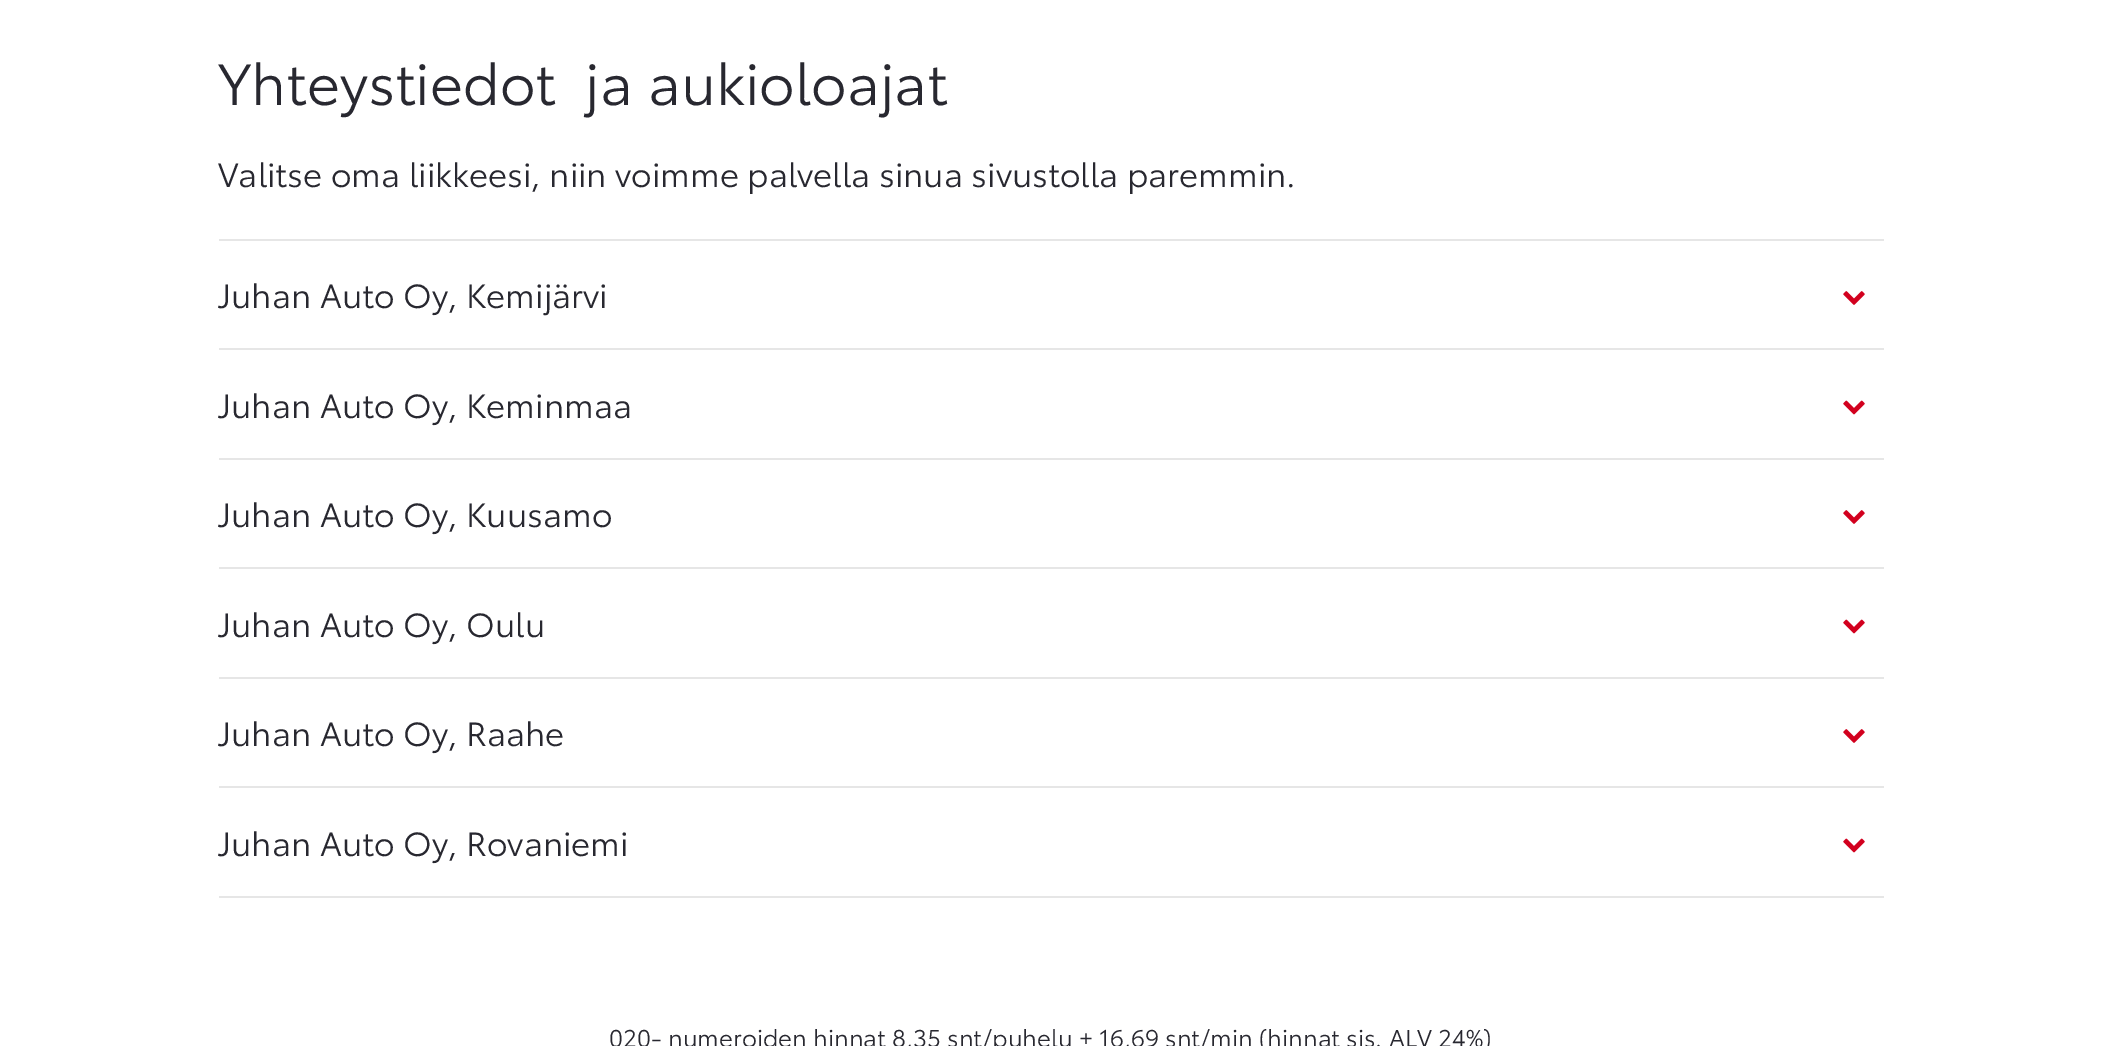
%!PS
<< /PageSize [2101 1046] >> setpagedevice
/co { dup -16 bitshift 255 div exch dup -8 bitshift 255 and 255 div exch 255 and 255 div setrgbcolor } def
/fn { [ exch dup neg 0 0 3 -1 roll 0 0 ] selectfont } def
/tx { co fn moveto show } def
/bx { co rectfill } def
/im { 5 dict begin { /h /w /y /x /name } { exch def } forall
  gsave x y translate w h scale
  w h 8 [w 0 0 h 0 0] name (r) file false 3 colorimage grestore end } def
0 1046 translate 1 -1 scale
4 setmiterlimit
0 0 2101 1046 16#FFFFFF bx
219 239 1665 2 16#E6E6E6 bx
(media/1.raw) 1843 291 22 14 im
219 348 1665 2 16#E6E6E6 bx
(media/2.raw) 1843 400 22 15 im
219 458 1665 2 16#E6E6E6 bx
(media/1.raw) 1843 510 22 14 im
219 567 1665 2 16#E6E6E6 bx
(media/2.raw) 1843 619 22 15 im
219 677 1665 2 16#E6E6E6 bx
(media/1.raw) 1843 729 22 14 im
219 786 1665 2 16#E6E6E6 bx
(media/2.raw) 1843 838 22 15 im
219 896 1665 2 16#E6E6E6 bx
(Yhteystiedot  ja aukioloajat) 218 105 /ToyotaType-Regular 57 16#282830 tx
(Valitse oma liikkeesi, niin voimme palvella sinua sivustolla paremmin.) 218 187 /ToyotaType-Regular 33 16#282830 tx
(Juhan Auto Oy, Kemijärvi) 218 308 /ToyotaType-Regular 33 16#282830 tx
(Juhan Auto Oy, Keminmaa) 218 418 /ToyotaType-Regular 33 16#282830 tx
(Juhan Auto Oy, Kuusamo) 218 527 /ToyotaType-Regular 33 16#282830 tx
(Juhan Auto Oy, Oulu) 218 637 /ToyotaType-Regular 33 16#282830 tx
(Juhan Auto Oy, Raahe) 218 746 /ToyotaType-Regular 33 16#282830 tx
(Juhan Auto Oy, Rovaniemi) 218 856 /ToyotaType-Regular 33 16#282830 tx
(020- numeroiden hinnat 8,35 snt/puhelu + 16,69 snt/min \(hinnat sis. ALV 24%\)) 609 1047 /ToyotaType-Regular 24 16#282830 tx
showpage
